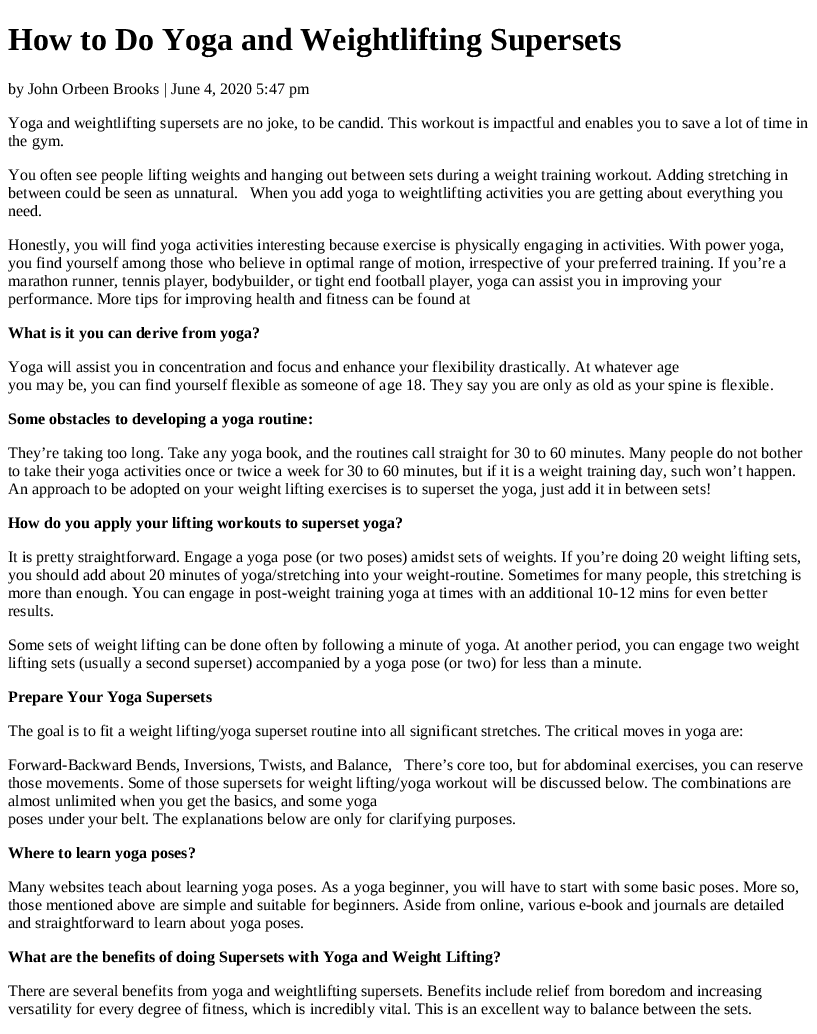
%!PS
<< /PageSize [817 1034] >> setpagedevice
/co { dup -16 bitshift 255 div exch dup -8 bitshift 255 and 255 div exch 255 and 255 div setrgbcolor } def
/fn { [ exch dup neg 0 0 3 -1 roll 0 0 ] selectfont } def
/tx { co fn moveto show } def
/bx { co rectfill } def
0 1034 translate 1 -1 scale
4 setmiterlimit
0 0 817 1034 16#FFFFFF bx
(How to Do Yoga and Weightlifting Supersets) 8 50 /LiberationSerif-Bold 32 16#000000 tx
(by John Orbeen Brooks | June 4, 2020 5:47 pm) 8 94 /LiberationSerif-Regular 16 16#000000 tx
(Yoga and weightlifting supersets are no joke, to be candid. This workout is impactful and enables you to save a lot of time in) 8 128 /LiberationSerif-Regular 16 16#000000 tx
(the gym.) 8 146 /LiberationSerif-Regular 16 16#000000 tx
(You often see people lifting weights and hanging out between sets during a weight training workout. Adding stretching in) 8 180 /LiberationSerif-Regular 16 16#000000 tx
(between could be seen as unnatural.   When you add yoga to weightlifting activities you are getting about everything you) 8 198 /LiberationSerif-Regular 16 16#000000 tx
(need.) 8 216 /LiberationSerif-Regular 16 16#000000 tx
(Honestly, you will find yoga activities interesting because exercise is physically engaging in activities. With power yoga,) 8 250 /LiberationSerif-Regular 16 16#000000 tx
(you find yourself among those who believe in optimal range of motion, irrespective of your preferred training. If you’re a) 8 268 /LiberationSerif-Regular 16 16#000000 tx
(marathon runner, tennis player, bodybuilder, or tight end football player, yoga can assist you in improving your) 8 286 /LiberationSerif-Regular 16 16#000000 tx
(performance. More tips for improving health and fitness can be found at) 8 304 /LiberationSerif-Regular 16 16#000000 tx
(What is it you can derive from yoga?) 8 338 /LiberationSerif-Bold 16 16#000000 tx
(Yoga will assist you in concentration and focus and enhance your flexibility drastically. At whatever age) 8 372 /LiberationSerif-Regular 16 16#000000 tx
(you may be, you can find yourself flexible as someone of age 18. They say you are only as old as your spine is flexible.) 8 390 /LiberationSerif-Regular 16 16#000000 tx
(Some obstacles to developing a yoga routine:) 8 424 /LiberationSerif-Bold 16 16#000000 tx
(They’re taking too long. Take any yoga book, and the routines call straight for 30 to 60 minutes. Many people do not bother) 8 458 /LiberationSerif-Regular 16 16#000000 tx
(to take their yoga activities once or twice a week for 30 to 60 minutes, but if it is a weight training day, such won’t happen.) 8 476 /LiberationSerif-Regular 16 16#000000 tx
(An approach to be adopted on your weight lifting exercises is to superset the yoga, just add it in between sets!) 8 494 /LiberationSerif-Regular 16 16#000000 tx
(How do you apply your lifting workouts to superset yoga?) 8 528 /LiberationSerif-Bold 16 16#000000 tx
(It is pretty straightforward. Engage a yoga pose \(or two poses\) amidst sets of weights. If you’re doing 20 weight lifting sets,) 8 562 /LiberationSerif-Regular 16 16#000000 tx
(you should add about 20 minutes of yoga/stretching into your weight-routine. Sometimes for many people, this stretching is) 8 580 /LiberationSerif-Regular 16 16#000000 tx
(more than enough. You can engage in post-weight training yoga at times with an additional 10-12 mins for even better) 8 598 /LiberationSerif-Regular 16 16#000000 tx
(results.) 8 616 /LiberationSerif-Regular 16 16#000000 tx
(Some sets of weight lifting can be done often by following a minute of yoga. At another period, you can engage two weight) 8 650 /LiberationSerif-Regular 16 16#000000 tx
(lifting sets \(usually a second superset\) accompanied by a yoga pose \(or two\) for less than a minute.) 8 668 /LiberationSerif-Regular 16 16#000000 tx
(Prepare Your Yoga Supersets) 8 702 /LiberationSerif-Bold 16 16#000000 tx
(The goal is to fit a weight lifting/yoga superset routine into all significant stretches. The critical moves in yoga are:) 8 736 /LiberationSerif-Regular 16 16#000000 tx
(Forward-Backward Bends, Inversions, Twists, and Balance,   There’s core too, but for abdominal exercises, you can reserve) 8 770 /LiberationSerif-Regular 16 16#000000 tx
(those movements. Some of those supersets for weight lifting/yoga workout will be discussed below. The combinations are) 8 788 /LiberationSerif-Regular 16 16#000000 tx
(almost unlimited when you get the basics, and some yoga) 8 806 /LiberationSerif-Regular 16 16#000000 tx
(poses under your belt. The explanations below are only for clarifying purposes.) 8 824 /LiberationSerif-Regular 16 16#000000 tx
(Where to learn yoga poses?) 8 858 /LiberationSerif-Bold 16 16#000000 tx
(Many websites teach about learning yoga poses. As a yoga beginner, you will have to start with some basic poses. More so,) 8 892 /LiberationSerif-Regular 16 16#000000 tx
(those mentioned above are simple and suitable for beginners. Aside from online, various e-book and journals are detailed) 8 910 /LiberationSerif-Regular 16 16#000000 tx
(and straightforward to learn about yoga poses.) 8 928 /LiberationSerif-Regular 16 16#000000 tx
(What are the benefits of doing Supersets with Yoga and Weight Lifting?) 8 962 /LiberationSerif-Bold 16 16#000000 tx
(There are several benefits from yoga and weightlifting supersets. Benefits include relief from boredom and increasing) 8 996 /LiberationSerif-Regular 16 16#000000 tx
(versatility for every degree of fitness, which is incredibly vital. This is an excellent way to balance between the sets.) 8 1014 /LiberationSerif-Regular 16 16#000000 tx
showpage
